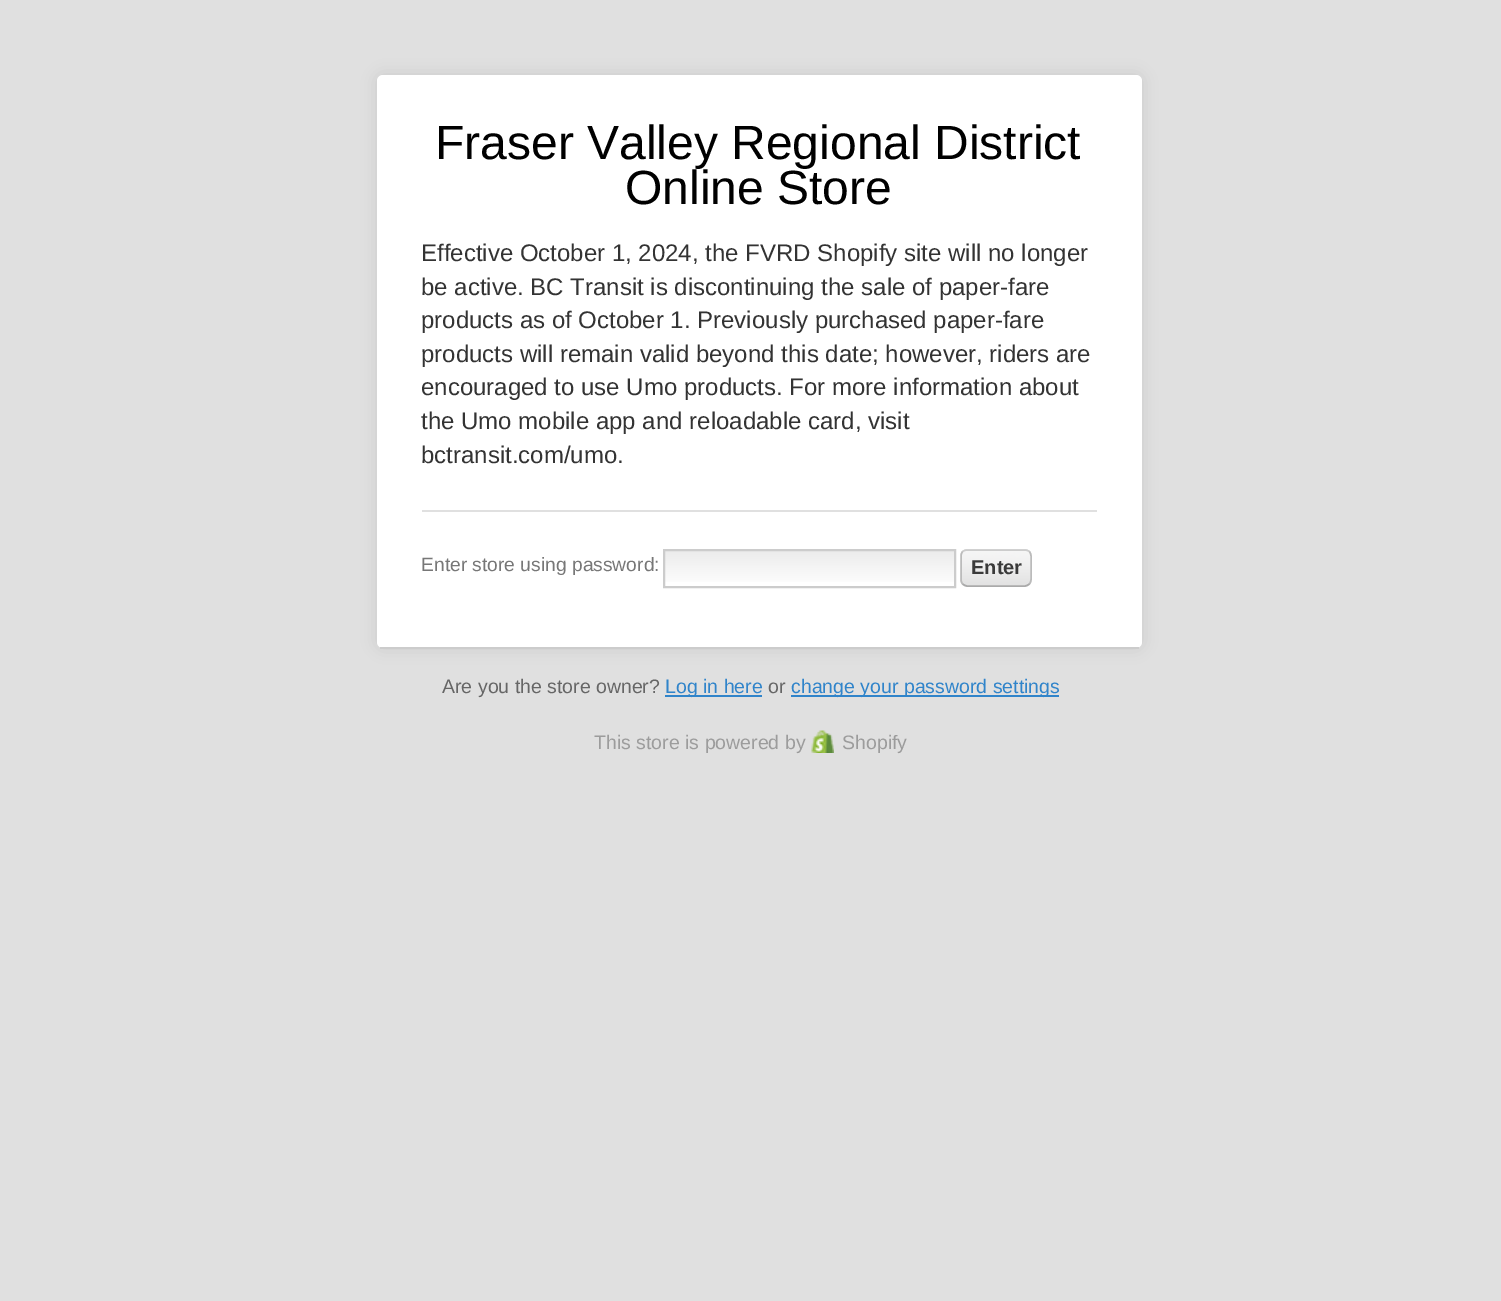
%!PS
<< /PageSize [1501 1301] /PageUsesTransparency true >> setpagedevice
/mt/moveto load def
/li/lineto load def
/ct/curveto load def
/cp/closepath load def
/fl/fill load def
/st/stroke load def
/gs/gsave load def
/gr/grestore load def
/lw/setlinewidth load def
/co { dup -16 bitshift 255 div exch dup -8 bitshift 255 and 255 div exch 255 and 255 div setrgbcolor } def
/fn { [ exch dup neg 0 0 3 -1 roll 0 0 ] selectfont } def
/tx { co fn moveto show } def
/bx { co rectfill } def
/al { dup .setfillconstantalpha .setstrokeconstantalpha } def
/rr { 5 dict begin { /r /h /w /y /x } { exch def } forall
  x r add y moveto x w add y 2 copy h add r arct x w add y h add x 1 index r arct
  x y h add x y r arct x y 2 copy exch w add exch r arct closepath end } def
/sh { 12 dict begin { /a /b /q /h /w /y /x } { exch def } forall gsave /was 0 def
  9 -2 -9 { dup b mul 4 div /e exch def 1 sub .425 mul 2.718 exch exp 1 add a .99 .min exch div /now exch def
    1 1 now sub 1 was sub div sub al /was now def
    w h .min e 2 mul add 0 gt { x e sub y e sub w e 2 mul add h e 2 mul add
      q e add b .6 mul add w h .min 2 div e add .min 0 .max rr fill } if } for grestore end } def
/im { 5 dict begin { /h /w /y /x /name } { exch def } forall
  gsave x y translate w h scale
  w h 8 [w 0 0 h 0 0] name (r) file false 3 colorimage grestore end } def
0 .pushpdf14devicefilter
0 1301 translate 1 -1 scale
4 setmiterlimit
0 0 1501 1301 16#E0E0E0 bx
16#000000 co
377 75 765 573 6 7.5 .1 sh
16#FFFFFF co
377 75 765 573 6 rr fl
380 647 759 2 16#CCCCCC bx
422 510 675 2 16#E0E0E0 bx
gs 665 551 mt 954 551 li 954 582 li 665 582 li cp clip newpath
<< /ShadingType 2 /ColorSpace /DeviceRGB /Coords [665 551 665 587] /Extend [true true] /Function << /FunctionType 2 /Domain [0 1] /C0 [.925 .925 .925] /C1 [1 1 1] /N 1 >> >> shfill gr
16#CCCCCC co
2 lw
664 550 291 37 rectstroke
16#DDDDDD co
960 549 72 38 8 rr fl
(media/1.raw) 960 550 72 36 im
16#CCCCCC co
1.5 lw
962.5 551.5 mt 964 550.5 965.5 550 967.5 550 ct 1024.5 550 li 1026.5 550 1028 550.5 1029.5 551.5 ct st
16#BBBBBB co
1029.5 551.5 mt 1030.5 553 1031 554.5 1031 556.5 ct 1031 579 li 1031 581 1030.5 582.5 1029.5 584 ct st
16#AAAAAA co
1029.5 584 mt 1028 585 1026.5 586 1024.5 586 ct 967.5 586 li 965.5 586 964 585 962.5 584 ct st
16#BBBBBB co
962.5 584 mt 961.5 582.5 961 581 961 579 ct 961 556.5 li 961 554.5 961.5 553 962.5 551.5 ct st
665 695 97 2 16#3084CA bx
791 695 268 2 16#3084CA bx
(media/2.raw) 811 730 23 23 im
(Fraser Valley Regional District) 435 159 /LiberationSans-Regular 48 16#000000 tx
(Online Store) 625 204 /LiberationSans-Regular 48 16#000000 tx
(Effective October 1, 2024, the FVRD Shopify site will no longer) 421 261 /LiberationSans-Regular 24 16#333333 tx
(be active. BC Transit is discontinuing the sale of paper-fare) 421 295 /LiberationSans-Regular 24 16#333333 tx
(products as of October 1. Previously purchased paper-fare) 421 328 /LiberationSans-Regular 24 16#333333 tx
(products will remain valid beyond this date; however, riders are) 421 362 /LiberationSans-Regular 24 16#333333 tx
(encouraged to use Umo products. For more information about) 421 395 /LiberationSans-Regular 24 16#333333 tx
(the Umo mobile app and reloadable card, visit) 421 429 /LiberationSans-Regular 24 16#333333 tx
(bctransit.com/umo.) 421 463 /LiberationSans-Regular 24 16#333333 tx
(Enter store using password:) 421 571 /LiberationSans-Regular 19.25 16#777777 tx
(Enter) 971 574 /LiberationSans-Bold 20 16#3A3A3A tx
(Are you the store owner?) 442 693 /LiberationSans-Regular 19.5 16#666666 tx
(Log in here) 665 693 /LiberationSans-Regular 19.5 16#3084CA tx
(or) 768 693 /LiberationSans-Regular 19.5 16#666666 tx
(change your password settings) 791 693 /LiberationSans-Regular 19.5 16#3084CA tx
(This store is powered by) 594 749 /LiberationSans-Regular 19.5 16#9C9C9C tx
(Shopify) 842 749 /LiberationSans-Regular 19.5 16#9C9C9C tx
.poppdf14devicefilter showpage
